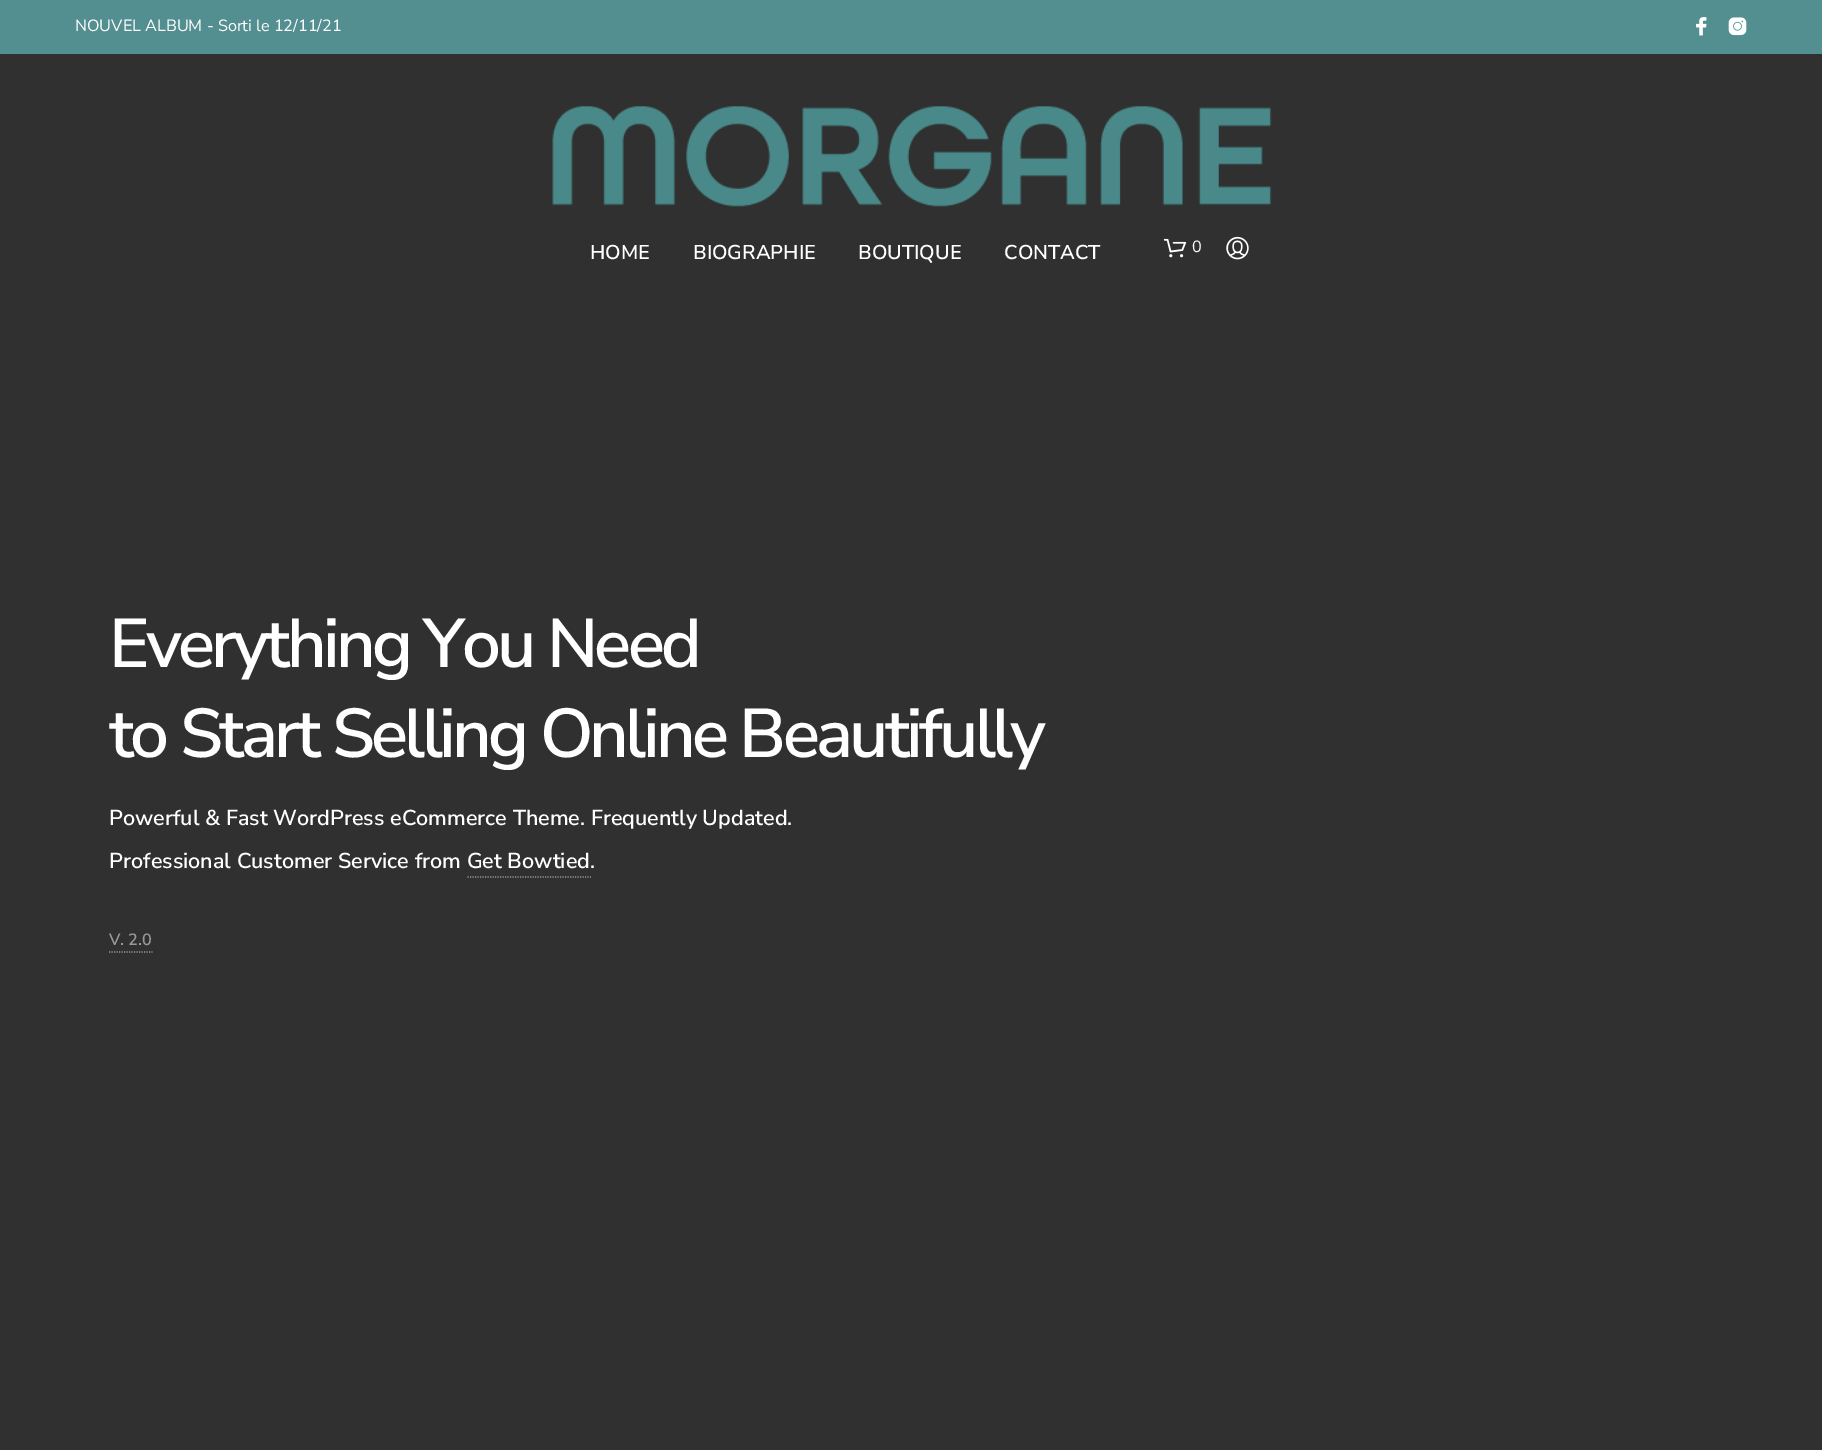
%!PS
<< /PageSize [1822 1450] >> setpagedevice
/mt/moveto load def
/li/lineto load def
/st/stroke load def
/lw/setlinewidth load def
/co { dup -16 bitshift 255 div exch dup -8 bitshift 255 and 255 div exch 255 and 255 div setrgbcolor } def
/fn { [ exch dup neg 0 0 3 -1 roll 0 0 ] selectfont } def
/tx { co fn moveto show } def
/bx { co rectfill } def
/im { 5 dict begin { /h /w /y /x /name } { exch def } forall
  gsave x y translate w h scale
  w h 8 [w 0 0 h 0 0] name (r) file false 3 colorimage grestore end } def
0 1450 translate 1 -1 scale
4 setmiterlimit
0 0 1822 1450 16#303030 bx
0 0 1822 54 16#538F90 bx
(media/1.raw) 1696 17 11 19 im
(media/2.raw) 1728 17 19 19 im
(media/3.raw) 552 106 720 101 im
(media/4.raw) 1163 238 24 20 im
(media/5.raw) 1226 236 23 24 im
16#999999 co
1.2 lw
[1.25 1.25] 0 setdash
467.5 877 mt 591 877 li st
109 952 mt 152.5 952 li st
(NOUVEL ALBUM - Sorti le 12/11/21) 75 31 /NunitoSans-Regular 16.25 16#FFFFFF tx
(HOME) 590 259 /NunitoSans-SemiBold 20 16#FFFFFF tx
(BIOGRAPHIE) 693 259 /NunitoSans-SemiBold 20 16#FFFFFF tx
(BOUTIQUE) 858 259 /NunitoSans-SemiBold 20 16#FFFFFF tx
(CONTACT) 1004 259 /NunitoSans-SemiBold 20 16#FFFFFF tx
(0) 1192 252 /NunitoSans-Regular 16.25 16#FFFFFF tx
/NunitoSans-SemiBold 69 fn
109 667 mt -3.75 0 (Everything You Need) ashow
109 757 mt -3.75 0 (to Start Selling Online Beautifully) ashow
(Powerful & Fast WordPress eCommerce Theme. Frequently Updated.) 109 825 /NunitoSans-SemiBold 21.55 16#FFFFFF tx
(Professional Customer Service from Get Bowtied.) 109 868 /NunitoSans-SemiBold 21.55 16#FFFFFF tx
(V. 2.0) 109 945 /NunitoSans-SemiBold 16.25 16#999999 tx
showpage
